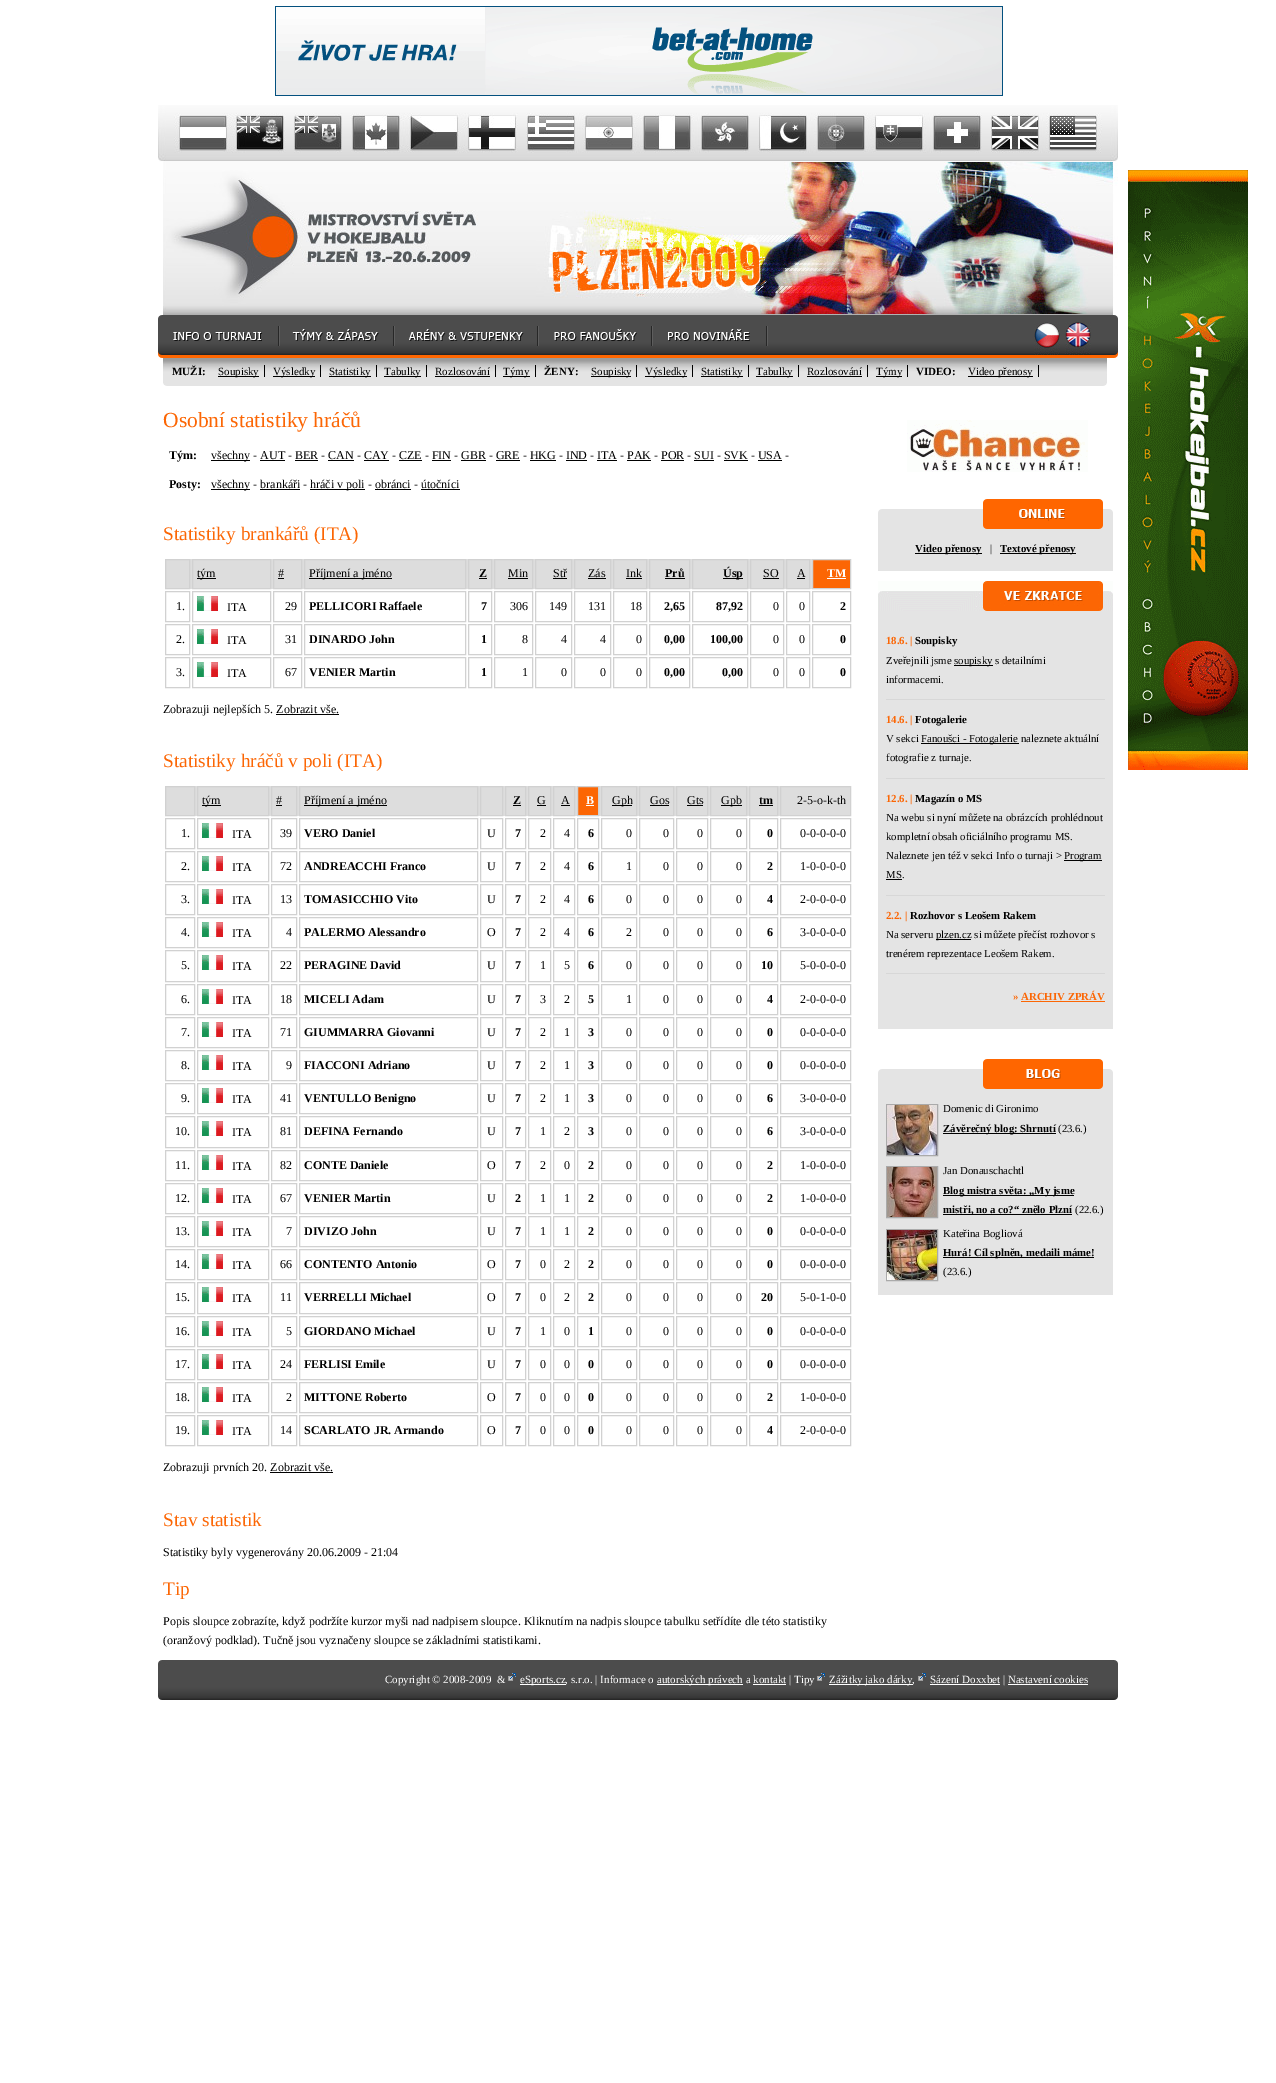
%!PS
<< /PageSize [1276 2083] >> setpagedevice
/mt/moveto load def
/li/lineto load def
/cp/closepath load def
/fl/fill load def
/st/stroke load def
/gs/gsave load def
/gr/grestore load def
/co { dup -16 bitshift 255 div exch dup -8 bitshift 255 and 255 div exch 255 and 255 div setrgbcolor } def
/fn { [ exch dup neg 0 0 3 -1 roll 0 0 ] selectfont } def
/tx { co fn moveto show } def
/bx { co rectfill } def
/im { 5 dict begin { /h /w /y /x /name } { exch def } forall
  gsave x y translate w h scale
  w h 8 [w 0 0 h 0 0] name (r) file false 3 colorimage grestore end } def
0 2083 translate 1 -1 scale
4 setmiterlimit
0 0 1276 2083 16#FFFFFF bx
(media/1.raw) 275 6 728 90 im
(media/2.raw) 1128 170 120 600 im
(media/3.raw) 158 105 960 57 im
(media/4.raw) 163 162 365 153 im
(media/5.raw) 528 162 590 153 im
(media/6.raw) 768 315 346 43 im
(media/7.raw) 158 315 610 43 im
(media/8.raw) 1034 322 26 33 im
(media/9.raw) 1065 322 26 33 im
(media/10.raw) 1114 315 4 43 im
(media/11.raw) 163 358 4 28 im
(media/12.raw) 167 358 936 28 im
264 365 1 12 16#000000 bx
218 376 41 1 16#000000 bx
320 365 1 12 16#000000 bx
273 376 42 1 16#000000 bx
376 365 1 12 16#000000 bx
329 376 42 1 16#000000 bx
426 365 1 12 16#000000 bx
384 376 37 1 16#000000 bx
495 365 1 12 16#000000 bx
435 376 55 1 16#000000 bx
535 365 1 12 16#000000 bx
503 376 27 1 16#000000 bx
636 365 1 12 16#000000 bx
591 376 40 1 16#000000 bx
692 365 1 12 16#000000 bx
645 376 42 1 16#000000 bx
748 365 1 12 16#000000 bx
701 376 42 1 16#000000 bx
798 365 1 12 16#000000 bx
756 376 37 1 16#000000 bx
867 365 1 12 16#000000 bx
807 376 55 1 16#000000 bx
907 365 1 12 16#000000 bx
876 376 26 1 16#000000 bx
1038 365 1 12 16#000000 bx
968 376 65 1 16#000000 bx
(media/13.raw) 1103 358 4 28 im
211 460 39 1 16#000000 bx
260 460 25 1 16#000000 bx
295 460 23 1 16#000000 bx
328 460 26 1 16#000000 bx
364 460 25 1 16#000000 bx
399 460 23 1 16#000000 bx
432 460 19 1 16#000000 bx
461 460 25 1 16#000000 bx
496 460 24 1 16#000000 bx
530 460 26 1 16#000000 bx
566 460 21 1 16#000000 bx
597 460 20 1 16#000000 bx
627 460 24 1 16#000000 bx
661 460 23 1 16#000000 bx
694 460 20 1 16#000000 bx
724 460 24 1 16#000000 bx
758 460 24 1 16#000000 bx
211 489 39 1 16#000000 bx
310 489 55 1 16#000000 bx
260 489 40 1 16#000000 bx
375 489 36 1 16#000000 bx
421 489 39 1 16#000000 bx
166 559 646 30 16#DDDDDD bx
16#D1D1D1 co
165.5 559.5 24 29 rectstroke
192.5 559.5 78 29 rectstroke
197 578 19 1 16#000000 bx
16#D1D1D1 co
273.5 559.5 28 29 rectstroke
278 578 6 1 16#000000 bx
16#D1D1D1 co
304.5 559.5 161 29 rectstroke
309 578 83 1 16#000000 bx
16#D1D1D1 co
468.5 559.5 23 29 rectstroke
479 578 8 1 16#000000 bx
16#D1D1D1 co
494.5 559.5 38 29 rectstroke
508 578 20 1 16#000000 bx
16#D1D1D1 co
535.5 559.5 36 29 rectstroke
553 578 14 1 16#000000 bx
16#D1D1D1 co
574.5 559.5 36 29 rectstroke
588 578 18 1 16#000000 bx
16#D1D1D1 co
613.5 559.5 33 29 rectstroke
626 578 16 1 16#000000 bx
16#D1D1D1 co
649.5 559.5 40 29 rectstroke
665 578 20 1 16#000000 bx
16#D1D1D1 co
692.5 559.5 55 29 rectstroke
723 578 20 1 16#000000 bx
16#D1D1D1 co
750.5 559.5 33 29 rectstroke
763 578 16 1 16#000000 bx
16#D1D1D1 co
786.5 559.5 23 29 rectstroke
797 578 8 1 16#000000 bx
16#FC6604 co
812.5 559.5 mt 850.5 559.5 li 850.5 588.5 li 812.5 588.5 li cp gs fl gr
16#D1D1D1 co
st
827 578 19 1 16#FFFFFF bx
16#D1D1D1 co
165.5 591.5 24 30 rectstroke
192.5 591.5 78 30 rectstroke
(media/14.raw) 197 596 21 15 im
273.5 591.5 28 30 rectstroke
304.5 591.5 161 30 rectstroke
468.5 591.5 23 30 rectstroke
494.5 591.5 38 30 rectstroke
535.5 591.5 36 30 rectstroke
574.5 591.5 36 30 rectstroke
613.5 591.5 33 30 rectstroke
649.5 591.5 40 30 rectstroke
692.5 591.5 55 30 rectstroke
750.5 591.5 33 30 rectstroke
786.5 591.5 23 30 rectstroke
812.5 591.5 38 30 rectstroke
165.5 624.5 24 30 rectstroke
192.5 624.5 78 30 rectstroke
(media/14.raw) 197 629 21 15 im
273.5 624.5 28 30 rectstroke
304.5 624.5 161 30 rectstroke
468.5 624.5 23 30 rectstroke
494.5 624.5 38 30 rectstroke
535.5 624.5 36 30 rectstroke
574.5 624.5 36 30 rectstroke
613.5 624.5 33 30 rectstroke
649.5 624.5 40 30 rectstroke
692.5 624.5 55 30 rectstroke
750.5 624.5 33 30 rectstroke
786.5 624.5 23 30 rectstroke
812.5 624.5 38 30 rectstroke
165.5 657.5 24 30 rectstroke
192.5 657.5 78 30 rectstroke
(media/14.raw) 197 662 21 15 im
273.5 657.5 28 30 rectstroke
304.5 657.5 161 30 rectstroke
468.5 657.5 23 30 rectstroke
494.5 657.5 38 30 rectstroke
535.5 657.5 36 30 rectstroke
574.5 657.5 36 30 rectstroke
613.5 657.5 33 30 rectstroke
649.5 657.5 40 30 rectstroke
692.5 657.5 55 30 rectstroke
750.5 657.5 33 30 rectstroke
786.5 657.5 23 30 rectstroke
812.5 657.5 38 30 rectstroke
276 714 63 1 16#000000 bx
166 786 684 30 16#DDDDDD bx
16#D1D1D1 co
165.5 786.5 29 29 rectstroke
197.5 786.5 71 29 rectstroke
202 805 19 1 16#000000 bx
16#D1D1D1 co
271.5 786.5 25 29 rectstroke
276 805 6 1 16#000000 bx
16#D1D1D1 co
299.5 786.5 178 29 rectstroke
304 805 83 1 16#000000 bx
16#D1D1D1 co
480.5 786.5 22 29 rectstroke
505.5 786.5 20 29 rectstroke
513 805 8 1 16#000000 bx
16#D1D1D1 co
528.5 786.5 22 29 rectstroke
537 805 9 1 16#000000 bx
16#D1D1D1 co
553.5 786.5 21 29 rectstroke
561 805 9 1 16#000000 bx
16#FC6604 co
577.5 786.5 mt 598.5 786.5 li 598.5 815.5 li 577.5 815.5 li cp gs fl gr
16#D1D1D1 co
st
586 805 8 1 16#FFFFFF bx
16#D1D1D1 co
601.5 786.5 35 29 rectstroke
612 805 20 1 16#000000 bx
16#D1D1D1 co
639.5 786.5 34 29 rectstroke
650 805 19 1 16#000000 bx
16#D1D1D1 co
676.5 786.5 31 29 rectstroke
687 805 16 1 16#000000 bx
16#D1D1D1 co
710.5 786.5 36 29 rectstroke
721 805 21 1 16#000000 bx
16#D1D1D1 co
749.5 786.5 28 29 rectstroke
759 805 14 1 16#000000 bx
16#D1D1D1 co
780.5 786.5 70 29 rectstroke
165.5 818.5 29 30 rectstroke
197.5 818.5 71 30 rectstroke
(media/14.raw) 202 823 21 15 im
271.5 818.5 25 30 rectstroke
299.5 818.5 178 30 rectstroke
480.5 818.5 22 30 rectstroke
505.5 818.5 20 30 rectstroke
528.5 818.5 22 30 rectstroke
553.5 818.5 21 30 rectstroke
577.5 818.5 21 30 rectstroke
601.5 818.5 35 30 rectstroke
639.5 818.5 34 30 rectstroke
676.5 818.5 31 30 rectstroke
710.5 818.5 36 30 rectstroke
749.5 818.5 28 30 rectstroke
780.5 818.5 70 30 rectstroke
165.5 851.5 29 30 rectstroke
197.5 851.5 71 30 rectstroke
(media/14.raw) 202 856 21 15 im
271.5 851.5 25 30 rectstroke
299.5 851.5 178 30 rectstroke
480.5 851.5 22 30 rectstroke
505.5 851.5 20 30 rectstroke
528.5 851.5 22 30 rectstroke
553.5 851.5 21 30 rectstroke
577.5 851.5 21 30 rectstroke
601.5 851.5 35 30 rectstroke
639.5 851.5 34 30 rectstroke
676.5 851.5 31 30 rectstroke
710.5 851.5 36 30 rectstroke
749.5 851.5 28 30 rectstroke
780.5 851.5 70 30 rectstroke
165.5 884.5 29 30 rectstroke
197.5 884.5 71 30 rectstroke
(media/14.raw) 202 889 21 15 im
271.5 884.5 25 30 rectstroke
299.5 884.5 178 30 rectstroke
480.5 884.5 22 30 rectstroke
505.5 884.5 20 30 rectstroke
528.5 884.5 22 30 rectstroke
553.5 884.5 21 30 rectstroke
577.5 884.5 21 30 rectstroke
601.5 884.5 35 30 rectstroke
639.5 884.5 34 30 rectstroke
676.5 884.5 31 30 rectstroke
710.5 884.5 36 30 rectstroke
749.5 884.5 28 30 rectstroke
780.5 884.5 70 30 rectstroke
165.5 917.5 29 30 rectstroke
197.5 917.5 71 30 rectstroke
(media/14.raw) 202 922 21 15 im
271.5 917.5 25 30 rectstroke
299.5 917.5 178 30 rectstroke
480.5 917.5 22 30 rectstroke
505.5 917.5 20 30 rectstroke
528.5 917.5 22 30 rectstroke
553.5 917.5 21 30 rectstroke
577.5 917.5 21 30 rectstroke
601.5 917.5 35 30 rectstroke
639.5 917.5 34 30 rectstroke
676.5 917.5 31 30 rectstroke
710.5 917.5 36 30 rectstroke
749.5 917.5 28 30 rectstroke
780.5 917.5 70 30 rectstroke
165.5 950.5 29 31 rectstroke
197.5 950.5 71 31 rectstroke
(media/14.raw) 202 955 21 15 im
271.5 950.5 25 31 rectstroke
299.5 950.5 178 31 rectstroke
480.5 950.5 22 31 rectstroke
505.5 950.5 20 31 rectstroke
528.5 950.5 22 31 rectstroke
553.5 950.5 21 31 rectstroke
577.5 950.5 21 31 rectstroke
601.5 950.5 35 31 rectstroke
639.5 950.5 34 31 rectstroke
676.5 950.5 31 31 rectstroke
710.5 950.5 36 31 rectstroke
749.5 950.5 28 31 rectstroke
780.5 950.5 70 31 rectstroke
165.5 984.5 29 30 rectstroke
197.5 984.5 71 30 rectstroke
(media/14.raw) 202 989 21 15 im
271.5 984.5 25 30 rectstroke
299.5 984.5 178 30 rectstroke
480.5 984.5 22 30 rectstroke
505.5 984.5 20 30 rectstroke
528.5 984.5 22 30 rectstroke
553.5 984.5 21 30 rectstroke
577.5 984.5 21 30 rectstroke
601.5 984.5 35 30 rectstroke
639.5 984.5 34 30 rectstroke
676.5 984.5 31 30 rectstroke
710.5 984.5 36 30 rectstroke
749.5 984.5 28 30 rectstroke
780.5 984.5 70 30 rectstroke
165.5 1017.5 29 30 rectstroke
197.5 1017.5 71 30 rectstroke
(media/14.raw) 202 1022 21 15 im
271.5 1017.5 25 30 rectstroke
299.5 1017.5 178 30 rectstroke
480.5 1017.5 22 30 rectstroke
505.5 1017.5 20 30 rectstroke
528.5 1017.5 22 30 rectstroke
553.5 1017.5 21 30 rectstroke
577.5 1017.5 21 30 rectstroke
601.5 1017.5 35 30 rectstroke
639.5 1017.5 34 30 rectstroke
676.5 1017.5 31 30 rectstroke
710.5 1017.5 36 30 rectstroke
749.5 1017.5 28 30 rectstroke
780.5 1017.5 70 30 rectstroke
165.5 1050.5 29 30 rectstroke
197.5 1050.5 71 30 rectstroke
(media/14.raw) 202 1055 21 15 im
271.5 1050.5 25 30 rectstroke
299.5 1050.5 178 30 rectstroke
480.5 1050.5 22 30 rectstroke
505.5 1050.5 20 30 rectstroke
528.5 1050.5 22 30 rectstroke
553.5 1050.5 21 30 rectstroke
577.5 1050.5 21 30 rectstroke
601.5 1050.5 35 30 rectstroke
639.5 1050.5 34 30 rectstroke
676.5 1050.5 31 30 rectstroke
710.5 1050.5 36 30 rectstroke
749.5 1050.5 28 30 rectstroke
780.5 1050.5 70 30 rectstroke
165.5 1083.5 29 30 rectstroke
197.5 1083.5 71 30 rectstroke
(media/14.raw) 202 1088 21 15 im
271.5 1083.5 25 30 rectstroke
299.5 1083.5 178 30 rectstroke
480.5 1083.5 22 30 rectstroke
505.5 1083.5 20 30 rectstroke
528.5 1083.5 22 30 rectstroke
553.5 1083.5 21 30 rectstroke
577.5 1083.5 21 30 rectstroke
601.5 1083.5 35 30 rectstroke
639.5 1083.5 34 30 rectstroke
676.5 1083.5 31 30 rectstroke
710.5 1083.5 36 30 rectstroke
749.5 1083.5 28 30 rectstroke
780.5 1083.5 70 30 rectstroke
165.5 1116.5 29 31 rectstroke
197.5 1116.5 71 31 rectstroke
(media/14.raw) 202 1121 21 15 im
271.5 1116.5 25 31 rectstroke
299.5 1116.5 178 31 rectstroke
480.5 1116.5 22 31 rectstroke
505.5 1116.5 20 31 rectstroke
528.5 1116.5 22 31 rectstroke
553.5 1116.5 21 31 rectstroke
577.5 1116.5 21 31 rectstroke
601.5 1116.5 35 31 rectstroke
639.5 1116.5 34 31 rectstroke
676.5 1116.5 31 31 rectstroke
710.5 1116.5 36 31 rectstroke
749.5 1116.5 28 31 rectstroke
780.5 1116.5 70 31 rectstroke
165.5 1150.5 29 30 rectstroke
197.5 1150.5 71 30 rectstroke
(media/14.raw) 202 1155 21 15 im
271.5 1150.5 25 30 rectstroke
299.5 1150.5 178 30 rectstroke
480.5 1150.5 22 30 rectstroke
505.5 1150.5 20 30 rectstroke
528.5 1150.5 22 30 rectstroke
553.5 1150.5 21 30 rectstroke
577.5 1150.5 21 30 rectstroke
601.5 1150.5 35 30 rectstroke
639.5 1150.5 34 30 rectstroke
676.5 1150.5 31 30 rectstroke
710.5 1150.5 36 30 rectstroke
749.5 1150.5 28 30 rectstroke
780.5 1150.5 70 30 rectstroke
165.5 1183.5 29 30 rectstroke
197.5 1183.5 71 30 rectstroke
(media/14.raw) 202 1188 21 15 im
271.5 1183.5 25 30 rectstroke
299.5 1183.5 178 30 rectstroke
480.5 1183.5 22 30 rectstroke
505.5 1183.5 20 30 rectstroke
528.5 1183.5 22 30 rectstroke
553.5 1183.5 21 30 rectstroke
577.5 1183.5 21 30 rectstroke
601.5 1183.5 35 30 rectstroke
639.5 1183.5 34 30 rectstroke
676.5 1183.5 31 30 rectstroke
710.5 1183.5 36 30 rectstroke
749.5 1183.5 28 30 rectstroke
780.5 1183.5 70 30 rectstroke
165.5 1216.5 29 30 rectstroke
197.5 1216.5 71 30 rectstroke
(media/14.raw) 202 1221 21 15 im
271.5 1216.5 25 30 rectstroke
299.5 1216.5 178 30 rectstroke
480.5 1216.5 22 30 rectstroke
505.5 1216.5 20 30 rectstroke
528.5 1216.5 22 30 rectstroke
553.5 1216.5 21 30 rectstroke
577.5 1216.5 21 30 rectstroke
601.5 1216.5 35 30 rectstroke
639.5 1216.5 34 30 rectstroke
676.5 1216.5 31 30 rectstroke
710.5 1216.5 36 30 rectstroke
749.5 1216.5 28 30 rectstroke
780.5 1216.5 70 30 rectstroke
165.5 1249.5 29 30 rectstroke
197.5 1249.5 71 30 rectstroke
(media/14.raw) 202 1254 21 15 im
271.5 1249.5 25 30 rectstroke
299.5 1249.5 178 30 rectstroke
480.5 1249.5 22 30 rectstroke
505.5 1249.5 20 30 rectstroke
528.5 1249.5 22 30 rectstroke
553.5 1249.5 21 30 rectstroke
577.5 1249.5 21 30 rectstroke
601.5 1249.5 35 30 rectstroke
639.5 1249.5 34 30 rectstroke
676.5 1249.5 31 30 rectstroke
710.5 1249.5 36 30 rectstroke
749.5 1249.5 28 30 rectstroke
780.5 1249.5 70 30 rectstroke
165.5 1282.5 29 31 rectstroke
197.5 1282.5 71 31 rectstroke
(media/14.raw) 202 1287 21 15 im
271.5 1282.5 25 31 rectstroke
299.5 1282.5 178 31 rectstroke
480.5 1282.5 22 31 rectstroke
505.5 1282.5 20 31 rectstroke
528.5 1282.5 22 31 rectstroke
553.5 1282.5 21 31 rectstroke
577.5 1282.5 21 31 rectstroke
601.5 1282.5 35 31 rectstroke
639.5 1282.5 34 31 rectstroke
676.5 1282.5 31 31 rectstroke
710.5 1282.5 36 31 rectstroke
749.5 1282.5 28 31 rectstroke
780.5 1282.5 70 31 rectstroke
165.5 1316.5 29 30 rectstroke
197.5 1316.5 71 30 rectstroke
(media/14.raw) 202 1321 21 15 im
271.5 1316.5 25 30 rectstroke
299.5 1316.5 178 30 rectstroke
480.5 1316.5 22 30 rectstroke
505.5 1316.5 20 30 rectstroke
528.5 1316.5 22 30 rectstroke
553.5 1316.5 21 30 rectstroke
577.5 1316.5 21 30 rectstroke
601.5 1316.5 35 30 rectstroke
639.5 1316.5 34 30 rectstroke
676.5 1316.5 31 30 rectstroke
710.5 1316.5 36 30 rectstroke
749.5 1316.5 28 30 rectstroke
780.5 1316.5 70 30 rectstroke
165.5 1349.5 29 30 rectstroke
197.5 1349.5 71 30 rectstroke
(media/14.raw) 202 1354 21 15 im
271.5 1349.5 25 30 rectstroke
299.5 1349.5 178 30 rectstroke
480.5 1349.5 22 30 rectstroke
505.5 1349.5 20 30 rectstroke
528.5 1349.5 22 30 rectstroke
553.5 1349.5 21 30 rectstroke
577.5 1349.5 21 30 rectstroke
601.5 1349.5 35 30 rectstroke
639.5 1349.5 34 30 rectstroke
676.5 1349.5 31 30 rectstroke
710.5 1349.5 36 30 rectstroke
749.5 1349.5 28 30 rectstroke
780.5 1349.5 70 30 rectstroke
165.5 1382.5 29 30 rectstroke
197.5 1382.5 71 30 rectstroke
(media/14.raw) 202 1387 21 15 im
271.5 1382.5 25 30 rectstroke
299.5 1382.5 178 30 rectstroke
480.5 1382.5 22 30 rectstroke
505.5 1382.5 20 30 rectstroke
528.5 1382.5 22 30 rectstroke
553.5 1382.5 21 30 rectstroke
577.5 1382.5 21 30 rectstroke
601.5 1382.5 35 30 rectstroke
639.5 1382.5 34 30 rectstroke
676.5 1382.5 31 30 rectstroke
710.5 1382.5 36 30 rectstroke
749.5 1382.5 28 30 rectstroke
780.5 1382.5 70 30 rectstroke
165.5 1415.5 29 30 rectstroke
197.5 1415.5 71 30 rectstroke
(media/14.raw) 202 1420 21 15 im
271.5 1415.5 25 30 rectstroke
299.5 1415.5 178 30 rectstroke
480.5 1415.5 22 30 rectstroke
505.5 1415.5 20 30 rectstroke
528.5 1415.5 22 30 rectstroke
553.5 1415.5 21 30 rectstroke
577.5 1415.5 21 30 rectstroke
601.5 1415.5 35 30 rectstroke
639.5 1415.5 34 30 rectstroke
676.5 1415.5 31 30 rectstroke
710.5 1415.5 36 30 rectstroke
749.5 1415.5 28 30 rectstroke
780.5 1415.5 70 30 rectstroke
270 1472 63 1 16#000000 bx
(media/15.raw) 907 420 181 52 im
(media/16.raw) 878 499 235 30 im
878 529 235 42 16#E4E4E4 bx
915 553 67 1 16#000000 bx
1000 553 76 1 16#000000 bx
(media/17.raw) 878 581 235 30 im
878 611 235 418 16#E4E4E4 bx
954 665 39 1 16#000000 bx
886 699 219 1 16#D7D7D7 bx
921 743 98 1 16#000000 bx
886 778 219 1 16#D7D7D7 bx
1064 860 38 1 16#000000 bx
886 879 16 1 16#000000 bx
886 895 219 1 16#D7D7D7 bx
936 939 35 1 16#000000 bx
886 973 219 1 16#D7D7D7 bx
1021 1001 84 1 16#FC6604 bx
(media/18.raw) 878 1059 235 30 im
878 1089 235 206 16#E4E4E4 bx
16#AAAAAA co
886.5 1104.5 51 51 rectstroke
(media/19.raw) 887 1105 50 50 im
943 1133 113 1 16#000000 bx
16#AAAAAA co
886.5 1166.5 51 51 rectstroke
(media/20.raw) 887 1167 50 50 im
943 1195 131 1 16#000000 bx
943 1214 129 1 16#000000 bx
16#AAAAAA co
886.5 1229.5 51 51 rectstroke
(media/21.raw) 887 1230 50 50 im
943 1257 151 1 16#000000 bx
(media/22.raw) 158 1660 960 40 im
(media/23.raw) 508 1673 8 8 im
520 1684 46 1 16#FFFFFF bx
657 1684 86 1 16#FFFFFF bx
(media/23.raw) 817 1673 8 8 im
829 1684 84 1 16#FFFFFF bx
(media/23.raw) 918 1673 8 8 im
930 1684 70 1 16#FFFFFF bx
753 1684 33 1 16#FFFFFF bx
1008 1684 80 1 16#FFFFFF bx
(MUŽI:) 172 375 /LiberationSerif-Bold 11 16#000000 tx
(Soupisky) 218 375 /LiberationSerif-Regular 11 16#000000 tx
(Výsledky) 273 375 /LiberationSerif-Regular 11 16#000000 tx
(Statistiky) 329 375 /LiberationSerif-Regular 11 16#000000 tx
(Tabulky) 384 375 /LiberationSerif-Regular 11 16#000000 tx
(Rozlosování) 435 375 /LiberationSerif-Regular 11 16#000000 tx
(Týmy) 503 375 /LiberationSerif-Regular 11 16#000000 tx
(ŽENY:) 544 375 /LiberationSerif-Bold 11 16#000000 tx
(Soupisky) 591 375 /LiberationSerif-Regular 11 16#000000 tx
(Výsledky) 645 375 /LiberationSerif-Regular 11 16#000000 tx
(Statistiky) 701 375 /LiberationSerif-Regular 11 16#000000 tx
(Tabulky) 756 375 /LiberationSerif-Regular 11 16#000000 tx
(Rozlosování) 807 375 /LiberationSerif-Regular 11 16#000000 tx
(Týmy) 876 375 /LiberationSerif-Regular 11 16#000000 tx
(VIDEO:) 916 375 /LiberationSerif-Bold 11 16#000000 tx
(Video přenosy) 968 375 /LiberationSerif-Regular 11 16#000000 tx
(Osobní statistiky hráčů) 163 427 /LiberationSerif-Regular 21.5 16#FC6604 tx
(Tým:) 169 459 /LiberationSerif-Bold 12 16#000000 tx
(všechny - AUT - BER - CAN - CAY - CZE - FIN - GBR - GRE - HKG - IND - ITA - PAK - POR - SUI - SVK - USA -) 211 459 /LiberationSerif-Regular 12 16#000000 tx
(Posty:) 169 488 /LiberationSerif-Bold 12 16#000000 tx
(všechny - brankáři -) 211 488 /LiberationSerif-Regular 12 16#000000 tx
(hráči v poli - obránci - útočníci) 310 488 /LiberationSerif-Regular 12 16#000000 tx
(Statistiky brankářů \(ITA\)) 163 540 /LiberationSerif-Regular 19.25 16#FC6604 tx
(tým) 197 577 /LiberationSerif-Regular 12 16#000000 tx
(#) 278 577 /LiberationSerif-Regular 12 16#000000 tx
(Příjmení a jméno) 309 577 /LiberationSerif-Regular 12 16#000000 tx
(Z) 479 577 /LiberationSerif-Bold 12 16#000000 tx
(Min) 508 577 /LiberationSerif-Regular 12 16#000000 tx
(Stř) 553 577 /LiberationSerif-Regular 12 16#000000 tx
(Zás) 588 577 /LiberationSerif-Regular 12 16#000000 tx
(Ink) 626 577 /LiberationSerif-Regular 12 16#000000 tx
(Prů) 665 577 /LiberationSerif-Bold 12 16#000000 tx
(Úsp) 723 577 /LiberationSerif-Bold 12 16#000000 tx
(SO) 763 577 /LiberationSerif-Regular 12 16#000000 tx
(A) 797 577 /LiberationSerif-Regular 12 16#000000 tx
(TM) 827 577 /LiberationSerif-Bold 12 16#FFFFFF tx
(1.) 176 610 /LiberationSerif-Regular 12 16#000000 tx
(ITA) 227 611 /LiberationSerif-Regular 12 16#000000 tx
(29) 285 610 /LiberationSerif-Regular 12 16#000000 tx
(PELLICORI Raffaele) 309 610 /LiberationSerif-Bold 12 16#000000 tx
(7) 481 610 /LiberationSerif-Bold 12 16#000000 tx
(306) 510 610 /LiberationSerif-Regular 12 16#000000 tx
(149) 549 610 /LiberationSerif-Regular 12 16#000000 tx
(131) 588 610 /LiberationSerif-Regular 12 16#000000 tx
(18) 630 610 /LiberationSerif-Regular 12 16#000000 tx
(2,65) 664 610 /LiberationSerif-Bold 12 16#000000 tx
(87,92) 716 610 /LiberationSerif-Bold 12 16#000000 tx
(0) 773 610 /LiberationSerif-Regular 12 16#000000 tx
(0) 799 610 /LiberationSerif-Regular 12 16#000000 tx
(2) 840 610 /LiberationSerif-Bold 12 16#000000 tx
(2.) 176 643 /LiberationSerif-Regular 12 16#000000 tx
(ITA) 227 644 /LiberationSerif-Regular 12 16#000000 tx
(31) 285 643 /LiberationSerif-Regular 12 16#000000 tx
(DINARDO John) 309 643 /LiberationSerif-Bold 12 16#000000 tx
(1) 481 643 /LiberationSerif-Bold 12 16#000000 tx
(8) 522 643 /LiberationSerif-Regular 12 16#000000 tx
(4) 561 643 /LiberationSerif-Regular 12 16#000000 tx
(4) 600 643 /LiberationSerif-Regular 12 16#000000 tx
(0) 636 643 /LiberationSerif-Regular 12 16#000000 tx
(0,00) 664 643 /LiberationSerif-Bold 12 16#000000 tx
(100,00) 710 643 /LiberationSerif-Bold 12 16#000000 tx
(0) 773 643 /LiberationSerif-Regular 12 16#000000 tx
(0) 799 643 /LiberationSerif-Regular 12 16#000000 tx
(0) 840 643 /LiberationSerif-Bold 12 16#000000 tx
(3.) 176 676 /LiberationSerif-Regular 12 16#000000 tx
(ITA) 227 677 /LiberationSerif-Regular 12 16#000000 tx
(67) 285 676 /LiberationSerif-Regular 12 16#000000 tx
(VENIER Martin) 309 676 /LiberationSerif-Bold 12 16#000000 tx
(1) 481 676 /LiberationSerif-Bold 12 16#000000 tx
(1) 522 676 /LiberationSerif-Regular 12 16#000000 tx
(0) 561 676 /LiberationSerif-Regular 12 16#000000 tx
(0) 600 676 /LiberationSerif-Regular 12 16#000000 tx
(0) 636 676 /LiberationSerif-Regular 12 16#000000 tx
(0,00) 664 676 /LiberationSerif-Bold 12 16#000000 tx
(0,00) 722 676 /LiberationSerif-Bold 12 16#000000 tx
(0) 773 676 /LiberationSerif-Regular 12 16#000000 tx
(0) 799 676 /LiberationSerif-Regular 12 16#000000 tx
(0) 840 676 /LiberationSerif-Bold 12 16#000000 tx
(Zobrazuji nejlepších 5. Zobrazit vše.) 163 713 /LiberationSerif-Regular 12 16#000000 tx
(Statistiky hráčů v poli \(ITA\)) 163 767 /LiberationSerif-Regular 19.25 16#FC6604 tx
(tým) 202 804 /LiberationSerif-Regular 12 16#000000 tx
(#) 276 804 /LiberationSerif-Regular 12 16#000000 tx
(Příjmení a jméno) 304 804 /LiberationSerif-Regular 12 16#000000 tx
(Z) 513 804 /LiberationSerif-Bold 12 16#000000 tx
(G) 537 804 /LiberationSerif-Regular 12 16#000000 tx
(A) 561 804 /LiberationSerif-Regular 12 16#000000 tx
(B) 586 804 /LiberationSerif-Bold 12 16#FFFFFF tx
(Gph) 612 804 /LiberationSerif-Regular 12 16#000000 tx
(Gos) 650 804 /LiberationSerif-Regular 12 16#000000 tx
(Gts) 687 804 /LiberationSerif-Regular 12 16#000000 tx
(Gpb) 721 804 /LiberationSerif-Regular 12 16#000000 tx
(tm) 759 804 /LiberationSerif-Bold 12 16#000000 tx
(2-5-o-k-th) 797 804 /LiberationSerif-Regular 12 16#000000 tx
(1.) 181 837 /LiberationSerif-Regular 12 16#000000 tx
(ITA) 232 838 /LiberationSerif-Regular 12 16#000000 tx
(39) 280 837 /LiberationSerif-Regular 12 16#000000 tx
(VERO Daniel) 304 837 /LiberationSerif-Bold 12 16#000000 tx
(U) 487 837 /LiberationSerif-Regular 12 16#000000 tx
(7) 515 837 /LiberationSerif-Bold 12 16#000000 tx
(2) 540 837 /LiberationSerif-Regular 12 16#000000 tx
(4) 564 837 /LiberationSerif-Regular 12 16#000000 tx
(6) 588 837 /LiberationSerif-Bold 12 16#000000 tx
(0) 626 837 /LiberationSerif-Regular 12 16#000000 tx
(0) 663 837 /LiberationSerif-Regular 12 16#000000 tx
(0) 697 837 /LiberationSerif-Regular 12 16#000000 tx
(0) 736 837 /LiberationSerif-Regular 12 16#000000 tx
(0) 767 837 /LiberationSerif-Bold 12 16#000000 tx
(0-0-0-0-0) 800 837 /LiberationSerif-Regular 12 16#000000 tx
(2.) 181 870 /LiberationSerif-Regular 12 16#000000 tx
(ITA) 232 871 /LiberationSerif-Regular 12 16#000000 tx
(72) 280 870 /LiberationSerif-Regular 12 16#000000 tx
(ANDREACCHI Franco) 304 870 /LiberationSerif-Bold 12 16#000000 tx
(U) 487 870 /LiberationSerif-Regular 12 16#000000 tx
(7) 515 870 /LiberationSerif-Bold 12 16#000000 tx
(2) 540 870 /LiberationSerif-Regular 12 16#000000 tx
(4) 564 870 /LiberationSerif-Regular 12 16#000000 tx
(6) 588 870 /LiberationSerif-Bold 12 16#000000 tx
(1) 626 870 /LiberationSerif-Regular 12 16#000000 tx
(0) 663 870 /LiberationSerif-Regular 12 16#000000 tx
(0) 697 870 /LiberationSerif-Regular 12 16#000000 tx
(0) 736 870 /LiberationSerif-Regular 12 16#000000 tx
(2) 767 870 /LiberationSerif-Bold 12 16#000000 tx
(1-0-0-0-0) 800 870 /LiberationSerif-Regular 12 16#000000 tx
(3.) 181 903 /LiberationSerif-Regular 12 16#000000 tx
(ITA) 232 904 /LiberationSerif-Regular 12 16#000000 tx
(13) 280 903 /LiberationSerif-Regular 12 16#000000 tx
(TOMASICCHIO Vito) 304 903 /LiberationSerif-Bold 12 16#000000 tx
(U) 487 903 /LiberationSerif-Regular 12 16#000000 tx
(7) 515 903 /LiberationSerif-Bold 12 16#000000 tx
(2) 540 903 /LiberationSerif-Regular 12 16#000000 tx
(4) 564 903 /LiberationSerif-Regular 12 16#000000 tx
(6) 588 903 /LiberationSerif-Bold 12 16#000000 tx
(0) 626 903 /LiberationSerif-Regular 12 16#000000 tx
(0) 663 903 /LiberationSerif-Regular 12 16#000000 tx
(0) 697 903 /LiberationSerif-Regular 12 16#000000 tx
(0) 736 903 /LiberationSerif-Regular 12 16#000000 tx
(4) 767 903 /LiberationSerif-Bold 12 16#000000 tx
(2-0-0-0-0) 800 903 /LiberationSerif-Regular 12 16#000000 tx
(4.) 181 936 /LiberationSerif-Regular 12 16#000000 tx
(ITA) 232 937 /LiberationSerif-Regular 12 16#000000 tx
(4) 286 936 /LiberationSerif-Regular 12 16#000000 tx
(PALERMO Alessandro) 304 936 /LiberationSerif-Bold 12 16#000000 tx
(O) 487 936 /LiberationSerif-Regular 12 16#000000 tx
(7) 515 936 /LiberationSerif-Bold 12 16#000000 tx
(2) 540 936 /LiberationSerif-Regular 12 16#000000 tx
(4) 564 936 /LiberationSerif-Regular 12 16#000000 tx
(6) 588 936 /LiberationSerif-Bold 12 16#000000 tx
(2) 626 936 /LiberationSerif-Regular 12 16#000000 tx
(0) 663 936 /LiberationSerif-Regular 12 16#000000 tx
(0) 697 936 /LiberationSerif-Regular 12 16#000000 tx
(0) 736 936 /LiberationSerif-Regular 12 16#000000 tx
(6) 767 936 /LiberationSerif-Bold 12 16#000000 tx
(3-0-0-0-0) 800 936 /LiberationSerif-Regular 12 16#000000 tx
(5.) 181 969 /LiberationSerif-Regular 12 16#000000 tx
(ITA) 232 970 /LiberationSerif-Regular 12 16#000000 tx
(22) 280 969 /LiberationSerif-Regular 12 16#000000 tx
(PERAGINE David) 304 969 /LiberationSerif-Bold 12 16#000000 tx
(U) 487 969 /LiberationSerif-Regular 12 16#000000 tx
(7) 515 969 /LiberationSerif-Bold 12 16#000000 tx
(1) 540 969 /LiberationSerif-Regular 12 16#000000 tx
(5) 564 969 /LiberationSerif-Regular 12 16#000000 tx
(6) 588 969 /LiberationSerif-Bold 12 16#000000 tx
(0) 626 969 /LiberationSerif-Regular 12 16#000000 tx
(0) 663 969 /LiberationSerif-Regular 12 16#000000 tx
(0) 697 969 /LiberationSerif-Regular 12 16#000000 tx
(0) 736 969 /LiberationSerif-Regular 12 16#000000 tx
(10) 761 969 /LiberationSerif-Bold 12 16#000000 tx
(5-0-0-0-0) 800 969 /LiberationSerif-Regular 12 16#000000 tx
(6.) 181 1003 /LiberationSerif-Regular 12 16#000000 tx
(ITA) 232 1004 /LiberationSerif-Regular 12 16#000000 tx
(18) 280 1003 /LiberationSerif-Regular 12 16#000000 tx
(MICELI Adam) 304 1003 /LiberationSerif-Bold 12 16#000000 tx
(U) 487 1003 /LiberationSerif-Regular 12 16#000000 tx
(7) 515 1003 /LiberationSerif-Bold 12 16#000000 tx
(3) 540 1003 /LiberationSerif-Regular 12 16#000000 tx
(2) 564 1003 /LiberationSerif-Regular 12 16#000000 tx
(5) 588 1003 /LiberationSerif-Bold 12 16#000000 tx
(1) 626 1003 /LiberationSerif-Regular 12 16#000000 tx
(0) 663 1003 /LiberationSerif-Regular 12 16#000000 tx
(0) 697 1003 /LiberationSerif-Regular 12 16#000000 tx
(0) 736 1003 /LiberationSerif-Regular 12 16#000000 tx
(4) 767 1003 /LiberationSerif-Bold 12 16#000000 tx
(2-0-0-0-0) 800 1003 /LiberationSerif-Regular 12 16#000000 tx
(7.) 181 1036 /LiberationSerif-Regular 12 16#000000 tx
(ITA) 232 1037 /LiberationSerif-Regular 12 16#000000 tx
(71) 280 1036 /LiberationSerif-Regular 12 16#000000 tx
(GIUMMARRA Giovanni) 304 1036 /LiberationSerif-Bold 12 16#000000 tx
(U) 487 1036 /LiberationSerif-Regular 12 16#000000 tx
(7) 515 1036 /LiberationSerif-Bold 12 16#000000 tx
(2) 540 1036 /LiberationSerif-Regular 12 16#000000 tx
(1) 564 1036 /LiberationSerif-Regular 12 16#000000 tx
(3) 588 1036 /LiberationSerif-Bold 12 16#000000 tx
(0) 626 1036 /LiberationSerif-Regular 12 16#000000 tx
(0) 663 1036 /LiberationSerif-Regular 12 16#000000 tx
(0) 697 1036 /LiberationSerif-Regular 12 16#000000 tx
(0) 736 1036 /LiberationSerif-Regular 12 16#000000 tx
(0) 767 1036 /LiberationSerif-Bold 12 16#000000 tx
(0-0-0-0-0) 800 1036 /LiberationSerif-Regular 12 16#000000 tx
(8.) 181 1069 /LiberationSerif-Regular 12 16#000000 tx
(ITA) 232 1070 /LiberationSerif-Regular 12 16#000000 tx
(9) 286 1069 /LiberationSerif-Regular 12 16#000000 tx
(FIACCONI Adriano) 304 1069 /LiberationSerif-Bold 12 16#000000 tx
(U) 487 1069 /LiberationSerif-Regular 12 16#000000 tx
(7) 515 1069 /LiberationSerif-Bold 12 16#000000 tx
(2) 540 1069 /LiberationSerif-Regular 12 16#000000 tx
(1) 564 1069 /LiberationSerif-Regular 12 16#000000 tx
(3) 588 1069 /LiberationSerif-Bold 12 16#000000 tx
(0) 626 1069 /LiberationSerif-Regular 12 16#000000 tx
(0) 663 1069 /LiberationSerif-Regular 12 16#000000 tx
(0) 697 1069 /LiberationSerif-Regular 12 16#000000 tx
(0) 736 1069 /LiberationSerif-Regular 12 16#000000 tx
(0) 767 1069 /LiberationSerif-Bold 12 16#000000 tx
(0-0-0-0-0) 800 1069 /LiberationSerif-Regular 12 16#000000 tx
(9.) 181 1102 /LiberationSerif-Regular 12 16#000000 tx
(ITA) 232 1103 /LiberationSerif-Regular 12 16#000000 tx
(41) 280 1102 /LiberationSerif-Regular 12 16#000000 tx
(VENTULLO Benigno) 304 1102 /LiberationSerif-Bold 12 16#000000 tx
(U) 487 1102 /LiberationSerif-Regular 12 16#000000 tx
(7) 515 1102 /LiberationSerif-Bold 12 16#000000 tx
(2) 540 1102 /LiberationSerif-Regular 12 16#000000 tx
(1) 564 1102 /LiberationSerif-Regular 12 16#000000 tx
(3) 588 1102 /LiberationSerif-Bold 12 16#000000 tx
(0) 626 1102 /LiberationSerif-Regular 12 16#000000 tx
(0) 663 1102 /LiberationSerif-Regular 12 16#000000 tx
(0) 697 1102 /LiberationSerif-Regular 12 16#000000 tx
(0) 736 1102 /LiberationSerif-Regular 12 16#000000 tx
(6) 767 1102 /LiberationSerif-Bold 12 16#000000 tx
(3-0-0-0-0) 800 1102 /LiberationSerif-Regular 12 16#000000 tx
(10.) 175 1135 /LiberationSerif-Regular 12 16#000000 tx
(ITA) 232 1136 /LiberationSerif-Regular 12 16#000000 tx
(81) 280 1135 /LiberationSerif-Regular 12 16#000000 tx
(DEFINA Fernando) 304 1135 /LiberationSerif-Bold 12 16#000000 tx
(U) 487 1135 /LiberationSerif-Regular 12 16#000000 tx
(7) 515 1135 /LiberationSerif-Bold 12 16#000000 tx
(1) 540 1135 /LiberationSerif-Regular 12 16#000000 tx
(2) 564 1135 /LiberationSerif-Regular 12 16#000000 tx
(3) 588 1135 /LiberationSerif-Bold 12 16#000000 tx
(0) 626 1135 /LiberationSerif-Regular 12 16#000000 tx
(0) 663 1135 /LiberationSerif-Regular 12 16#000000 tx
(0) 697 1135 /LiberationSerif-Regular 12 16#000000 tx
(0) 736 1135 /LiberationSerif-Regular 12 16#000000 tx
(6) 767 1135 /LiberationSerif-Bold 12 16#000000 tx
(3-0-0-0-0) 800 1135 /LiberationSerif-Regular 12 16#000000 tx
(11.) 175 1169 /LiberationSerif-Regular 12 16#000000 tx
(ITA) 232 1170 /LiberationSerif-Regular 12 16#000000 tx
(82) 280 1169 /LiberationSerif-Regular 12 16#000000 tx
(CONTE Daniele) 304 1169 /LiberationSerif-Bold 12 16#000000 tx
(O) 487 1169 /LiberationSerif-Regular 12 16#000000 tx
(7) 515 1169 /LiberationSerif-Bold 12 16#000000 tx
(2) 540 1169 /LiberationSerif-Regular 12 16#000000 tx
(0) 564 1169 /LiberationSerif-Regular 12 16#000000 tx
(2) 588 1169 /LiberationSerif-Bold 12 16#000000 tx
(0) 626 1169 /LiberationSerif-Regular 12 16#000000 tx
(0) 663 1169 /LiberationSerif-Regular 12 16#000000 tx
(0) 697 1169 /LiberationSerif-Regular 12 16#000000 tx
(0) 736 1169 /LiberationSerif-Regular 12 16#000000 tx
(2) 767 1169 /LiberationSerif-Bold 12 16#000000 tx
(1-0-0-0-0) 800 1169 /LiberationSerif-Regular 12 16#000000 tx
(12.) 175 1202 /LiberationSerif-Regular 12 16#000000 tx
(ITA) 232 1203 /LiberationSerif-Regular 12 16#000000 tx
(67) 280 1202 /LiberationSerif-Regular 12 16#000000 tx
(VENIER Martin) 304 1202 /LiberationSerif-Bold 12 16#000000 tx
(U) 487 1202 /LiberationSerif-Regular 12 16#000000 tx
(2) 515 1202 /LiberationSerif-Bold 12 16#000000 tx
(1) 540 1202 /LiberationSerif-Regular 12 16#000000 tx
(1) 564 1202 /LiberationSerif-Regular 12 16#000000 tx
(2) 588 1202 /LiberationSerif-Bold 12 16#000000 tx
(0) 626 1202 /LiberationSerif-Regular 12 16#000000 tx
(0) 663 1202 /LiberationSerif-Regular 12 16#000000 tx
(0) 697 1202 /LiberationSerif-Regular 12 16#000000 tx
(0) 736 1202 /LiberationSerif-Regular 12 16#000000 tx
(2) 767 1202 /LiberationSerif-Bold 12 16#000000 tx
(1-0-0-0-0) 800 1202 /LiberationSerif-Regular 12 16#000000 tx
(13.) 175 1235 /LiberationSerif-Regular 12 16#000000 tx
(ITA) 232 1236 /LiberationSerif-Regular 12 16#000000 tx
(7) 286 1235 /LiberationSerif-Regular 12 16#000000 tx
(DIVIZO John) 304 1235 /LiberationSerif-Bold 12 16#000000 tx
(U) 487 1235 /LiberationSerif-Regular 12 16#000000 tx
(7) 515 1235 /LiberationSerif-Bold 12 16#000000 tx
(1) 540 1235 /LiberationSerif-Regular 12 16#000000 tx
(1) 564 1235 /LiberationSerif-Regular 12 16#000000 tx
(2) 588 1235 /LiberationSerif-Bold 12 16#000000 tx
(0) 626 1235 /LiberationSerif-Regular 12 16#000000 tx
(0) 663 1235 /LiberationSerif-Regular 12 16#000000 tx
(0) 697 1235 /LiberationSerif-Regular 12 16#000000 tx
(0) 736 1235 /LiberationSerif-Regular 12 16#000000 tx
(0) 767 1235 /LiberationSerif-Bold 12 16#000000 tx
(0-0-0-0-0) 800 1235 /LiberationSerif-Regular 12 16#000000 tx
(14.) 175 1268 /LiberationSerif-Regular 12 16#000000 tx
(ITA) 232 1269 /LiberationSerif-Regular 12 16#000000 tx
(66) 280 1268 /LiberationSerif-Regular 12 16#000000 tx
(CONTENTO Antonio) 304 1268 /LiberationSerif-Bold 12 16#000000 tx
(O) 487 1268 /LiberationSerif-Regular 12 16#000000 tx
(7) 515 1268 /LiberationSerif-Bold 12 16#000000 tx
(0) 540 1268 /LiberationSerif-Regular 12 16#000000 tx
(2) 564 1268 /LiberationSerif-Regular 12 16#000000 tx
(2) 588 1268 /LiberationSerif-Bold 12 16#000000 tx
(0) 626 1268 /LiberationSerif-Regular 12 16#000000 tx
(0) 663 1268 /LiberationSerif-Regular 12 16#000000 tx
(0) 697 1268 /LiberationSerif-Regular 12 16#000000 tx
(0) 736 1268 /LiberationSerif-Regular 12 16#000000 tx
(0) 767 1268 /LiberationSerif-Bold 12 16#000000 tx
(0-0-0-0-0) 800 1268 /LiberationSerif-Regular 12 16#000000 tx
(15.) 175 1301 /LiberationSerif-Regular 12 16#000000 tx
(ITA) 232 1302 /LiberationSerif-Regular 12 16#000000 tx
(11) 280 1301 /LiberationSerif-Regular 12 16#000000 tx
(VERRELLI Michael) 304 1301 /LiberationSerif-Bold 12 16#000000 tx
(O) 487 1301 /LiberationSerif-Regular 12 16#000000 tx
(7) 515 1301 /LiberationSerif-Bold 12 16#000000 tx
(0) 540 1301 /LiberationSerif-Regular 12 16#000000 tx
(2) 564 1301 /LiberationSerif-Regular 12 16#000000 tx
(2) 588 1301 /LiberationSerif-Bold 12 16#000000 tx
(0) 626 1301 /LiberationSerif-Regular 12 16#000000 tx
(0) 663 1301 /LiberationSerif-Regular 12 16#000000 tx
(0) 697 1301 /LiberationSerif-Regular 12 16#000000 tx
(0) 736 1301 /LiberationSerif-Regular 12 16#000000 tx
(20) 761 1301 /LiberationSerif-Bold 12 16#000000 tx
(5-0-1-0-0) 800 1301 /LiberationSerif-Regular 12 16#000000 tx
(16.) 175 1335 /LiberationSerif-Regular 12 16#000000 tx
(ITA) 232 1336 /LiberationSerif-Regular 12 16#000000 tx
(5) 286 1335 /LiberationSerif-Regular 12 16#000000 tx
(GIORDANO Michael) 304 1335 /LiberationSerif-Bold 12 16#000000 tx
(U) 487 1335 /LiberationSerif-Regular 12 16#000000 tx
(7) 515 1335 /LiberationSerif-Bold 12 16#000000 tx
(1) 540 1335 /LiberationSerif-Regular 12 16#000000 tx
(0) 564 1335 /LiberationSerif-Regular 12 16#000000 tx
(1) 588 1335 /LiberationSerif-Bold 12 16#000000 tx
(0) 626 1335 /LiberationSerif-Regular 12 16#000000 tx
(0) 663 1335 /LiberationSerif-Regular 12 16#000000 tx
(0) 697 1335 /LiberationSerif-Regular 12 16#000000 tx
(0) 736 1335 /LiberationSerif-Regular 12 16#000000 tx
(0) 767 1335 /LiberationSerif-Bold 12 16#000000 tx
(0-0-0-0-0) 800 1335 /LiberationSerif-Regular 12 16#000000 tx
(17.) 175 1368 /LiberationSerif-Regular 12 16#000000 tx
(ITA) 232 1369 /LiberationSerif-Regular 12 16#000000 tx
(24) 280 1368 /LiberationSerif-Regular 12 16#000000 tx
(FERLISI Emile) 304 1368 /LiberationSerif-Bold 12 16#000000 tx
(U) 487 1368 /LiberationSerif-Regular 12 16#000000 tx
(7) 515 1368 /LiberationSerif-Bold 12 16#000000 tx
(0) 540 1368 /LiberationSerif-Regular 12 16#000000 tx
(0) 564 1368 /LiberationSerif-Regular 12 16#000000 tx
(0) 588 1368 /LiberationSerif-Bold 12 16#000000 tx
(0) 626 1368 /LiberationSerif-Regular 12 16#000000 tx
(0) 663 1368 /LiberationSerif-Regular 12 16#000000 tx
(0) 697 1368 /LiberationSerif-Regular 12 16#000000 tx
(0) 736 1368 /LiberationSerif-Regular 12 16#000000 tx
(0) 767 1368 /LiberationSerif-Bold 12 16#000000 tx
(0-0-0-0-0) 800 1368 /LiberationSerif-Regular 12 16#000000 tx
(18.) 175 1401 /LiberationSerif-Regular 12 16#000000 tx
(ITA) 232 1402 /LiberationSerif-Regular 12 16#000000 tx
(2) 286 1401 /LiberationSerif-Regular 12 16#000000 tx
(MITTONE Roberto) 304 1401 /LiberationSerif-Bold 12 16#000000 tx
(O) 487 1401 /LiberationSerif-Regular 12 16#000000 tx
(7) 515 1401 /LiberationSerif-Bold 12 16#000000 tx
(0) 540 1401 /LiberationSerif-Regular 12 16#000000 tx
(0) 564 1401 /LiberationSerif-Regular 12 16#000000 tx
(0) 588 1401 /LiberationSerif-Bold 12 16#000000 tx
(0) 626 1401 /LiberationSerif-Regular 12 16#000000 tx
(0) 663 1401 /LiberationSerif-Regular 12 16#000000 tx
(0) 697 1401 /LiberationSerif-Regular 12 16#000000 tx
(0) 736 1401 /LiberationSerif-Regular 12 16#000000 tx
(2) 767 1401 /LiberationSerif-Bold 12 16#000000 tx
(1-0-0-0-0) 800 1401 /LiberationSerif-Regular 12 16#000000 tx
(19.) 175 1434 /LiberationSerif-Regular 12 16#000000 tx
(ITA) 232 1435 /LiberationSerif-Regular 12 16#000000 tx
(14) 280 1434 /LiberationSerif-Regular 12 16#000000 tx
(SCARLATO JR. Armando) 304 1434 /LiberationSerif-Bold 12 16#000000 tx
(O) 487 1434 /LiberationSerif-Regular 12 16#000000 tx
(7) 515 1434 /LiberationSerif-Bold 12 16#000000 tx
(0) 540 1434 /LiberationSerif-Regular 12 16#000000 tx
(0) 564 1434 /LiberationSerif-Regular 12 16#000000 tx
(0) 588 1434 /LiberationSerif-Bold 12 16#000000 tx
(0) 626 1434 /LiberationSerif-Regular 12 16#000000 tx
(0) 663 1434 /LiberationSerif-Regular 12 16#000000 tx
(0) 697 1434 /LiberationSerif-Regular 12 16#000000 tx
(0) 736 1434 /LiberationSerif-Regular 12 16#000000 tx
(4) 767 1434 /LiberationSerif-Bold 12 16#000000 tx
(2-0-0-0-0) 800 1434 /LiberationSerif-Regular 12 16#000000 tx
(Zobrazuji prvních 20. Zobrazit vše.) 163 1471 /LiberationSerif-Regular 12 16#000000 tx
(Stav statistik) 163 1526 /LiberationSerif-Regular 19.25 16#FC6604 tx
(Statistiky byly vygenerovány 20.06.2009 - 21:04) 163 1556 /LiberationSerif-Regular 12 16#000000 tx
(Tip) 163 1595 /LiberationSerif-Regular 19.25 16#FC6604 tx
(Popis sloupce zobrazíte, když podržíte kurzor myši nad nadpisem sloupce. Kliknutím na nadpis sloupce tabulku setřídíte dle této statistiky) 163 1625 /LiberationSerif-Regular 12 16#000000 tx
(\(oranžový podklad\). Tučně jsou vyznačeny sloupce se základními statistikami.) 163 1644 /LiberationSerif-Regular 12 16#000000 tx
(Video přenosy) 915 552 /LiberationSerif-Bold 10.8 16#000000 tx
(|) 990 552 /LiberationSerif-Regular 10.8 16#000000 tx
(Textové přenosy) 1000 552 /LiberationSerif-Bold 10.8 16#000000 tx
(18.6. |) 886 644 /LiberationSerif-Bold 10.8 16#FC6604 tx
(Soupisky) 915 644 /LiberationSerif-Bold 10.8 16#000000 tx
(Zveřejnili jsme) 886 664 /LiberationSerif-Regular 10.8 16#000000 tx
(soupisky s detailními) 954 664 /LiberationSerif-Regular 10.8 16#000000 tx
(informacemi.) 886 683 /LiberationSerif-Regular 10.8 16#000000 tx
(14.6. |) 886 723 /LiberationSerif-Bold 10.8 16#FC6604 tx
(Fotogalerie) 915 723 /LiberationSerif-Bold 10.8 16#000000 tx
(V sekci) 886 742 /LiberationSerif-Regular 10.8 16#000000 tx
(Fanoušci - Fotogalerie naleznete aktuální) 921 742 /LiberationSerif-Regular 10.8 16#000000 tx
(fotografie z turnaje.) 886 761 /LiberationSerif-Regular 10.8 16#000000 tx
(12.6. |) 886 802 /LiberationSerif-Bold 10.8 16#FC6604 tx
(Magazín o MS) 915 802 /LiberationSerif-Bold 10.8 16#000000 tx
(Na webu si nyní můžete na obrázcích prohlédnout) 886 821 /LiberationSerif-Regular 10.8 16#000000 tx
(kompletní obsah oficiálního programu MS.) 886 840 /LiberationSerif-Regular 10.8 16#000000 tx
(Naleznete jen též v sekci Info o turnaji >) 886 859 /LiberationSerif-Regular 10.8 16#000000 tx
(Program) 1064 859 /LiberationSerif-Regular 10.8 16#000000 tx
(MS.) 886 878 /LiberationSerif-Regular 10.8 16#000000 tx
(2.2. |) 886 919 /LiberationSerif-Bold 10.8 16#FC6604 tx
(Rozhovor s Leošem Rakem) 910 919 /LiberationSerif-Bold 10.8 16#000000 tx
(Na serveru) 886 938 /LiberationSerif-Regular 10.8 16#000000 tx
(plzen.cz si můžete přečíst rozhovor s) 936 938 /LiberationSerif-Regular 10.8 16#000000 tx
(trenérem reprezentace Leošem Rakem.) 886 957 /LiberationSerif-Regular 10.8 16#000000 tx
(» ARCHIV ZPRÁV) 1013 1000 /LiberationSerif-Bold 10.8 16#FC6604 tx
(Domenic di Gironimo) 943 1112 /LiberationSerif-Regular 10.8 16#000000 tx
(Závěrečný blog: Shrnutí) 943 1132 /LiberationSerif-Bold 10.8 16#000000 tx
(\(23.6.\)) 1058 1132 /LiberationSerif-Regular 10.8 16#000000 tx
(Jan Donauschachtl) 943 1174 /LiberationSerif-Regular 10.8 16#000000 tx
(Blog mistra světa: „My jsme) 943 1194 /LiberationSerif-Bold 10.8 16#000000 tx
(mistři, no a co?“ znělo Plzní) 943 1213 /LiberationSerif-Bold 10.8 16#000000 tx
(\(22.6.\)) 1075 1213 /LiberationSerif-Regular 10.8 16#000000 tx
(Kateřina Bogliová) 943 1237 /LiberationSerif-Regular 10.8 16#000000 tx
(Hurá! Cíl splněn, medaili máme!) 943 1256 /LiberationSerif-Bold 10.8 16#000000 tx
(\(23.6.\)) 943 1275 /LiberationSerif-Regular 10.8 16#000000 tx
(Copyright © 2008-2009) 385 1683 /LiberationSerif-Regular 11 16#FFFFFF tx
(&) 497 1683 /LiberationSerif-Regular 11 16#FFFFFF tx
(eSports.cz, s.r.o. | Informace o) 520 1683 /LiberationSerif-Regular 11 16#FFFFFF tx
(autorských právech a kontakt | Tipy) 657 1683 /LiberationSerif-Regular 11 16#FFFFFF tx
(Zážitky jako dárky,) 829 1683 /LiberationSerif-Regular 11 16#FFFFFF tx
(Sázení Doxxbet | Nastavení cookies) 930 1683 /LiberationSerif-Regular 11 16#FFFFFF tx
showpage
